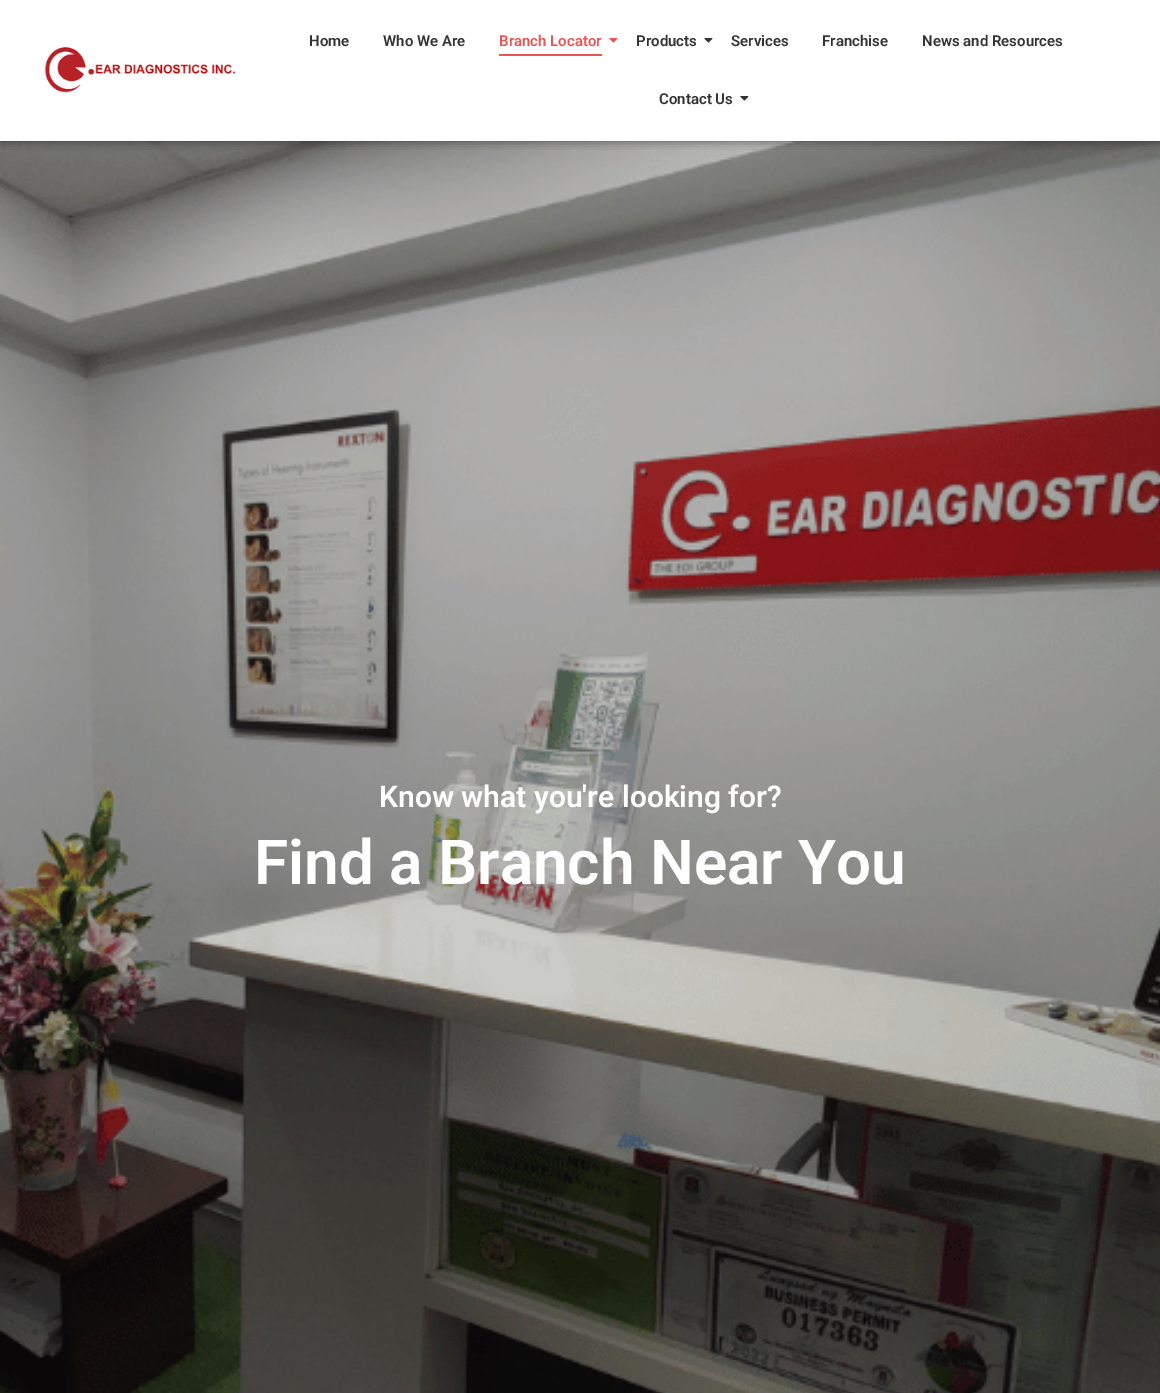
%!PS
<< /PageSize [1160 1393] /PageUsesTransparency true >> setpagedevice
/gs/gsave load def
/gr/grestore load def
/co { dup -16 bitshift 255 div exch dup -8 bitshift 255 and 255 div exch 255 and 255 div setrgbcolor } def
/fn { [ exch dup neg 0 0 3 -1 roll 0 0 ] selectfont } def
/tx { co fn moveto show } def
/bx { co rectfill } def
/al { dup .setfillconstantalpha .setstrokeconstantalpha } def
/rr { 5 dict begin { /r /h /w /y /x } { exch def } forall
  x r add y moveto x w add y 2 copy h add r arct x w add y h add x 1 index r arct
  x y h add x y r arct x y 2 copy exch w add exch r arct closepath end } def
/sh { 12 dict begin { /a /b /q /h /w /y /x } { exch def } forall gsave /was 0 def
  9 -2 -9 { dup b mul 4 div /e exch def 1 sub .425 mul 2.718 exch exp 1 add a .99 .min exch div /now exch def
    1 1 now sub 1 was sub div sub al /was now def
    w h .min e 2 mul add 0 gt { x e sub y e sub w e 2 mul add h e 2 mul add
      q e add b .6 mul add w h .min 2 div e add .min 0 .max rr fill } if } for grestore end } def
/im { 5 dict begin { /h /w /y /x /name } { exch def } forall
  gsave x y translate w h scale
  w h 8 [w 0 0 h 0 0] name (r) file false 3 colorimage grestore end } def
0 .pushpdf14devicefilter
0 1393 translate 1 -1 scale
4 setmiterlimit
0 0 1160 1393 16#FFFFFF bx
(media/4.raw) 0 141 1160 1252 im
gs
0 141 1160 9 rectclip
16#000000 co
0 0 1160 141 0 5 .5 sh
gr
(media/1.raw) 44 47 193 46 im
(media/2.raw) 609 38 9 5 im
499 54 103 2 16#E75555 bx
(media/3.raw) 704 38 9 5 im
(media/3.raw) 740 96 9 5 im
(Home) 309 46 /Roboto-SemiBold 15 16#333333 tx
(Who We Are) 383 46 /Roboto-SemiBold 15 16#333333 tx
(Branch Locator) 499 46 /Roboto-SemiBold 15 16#E75555 tx
(Products) 636 46 /Roboto-SemiBold 15 16#333333 tx
(Services) 731 46 /Roboto-SemiBold 15 16#333333 tx
(Franchise) 822 46 /Roboto-SemiBold 15 16#333333 tx
(News and Resources) 922 46 /Roboto-SemiBold 15 16#333333 tx
(Contact Us) 659 104 /Roboto-SemiBold 15 16#333333 tx
(Know what you're looking for?) 379 807 /Roboto-SemiBold 30 16#FFFFFF tx
(Find a Branch Near You) 254 884 /Roboto-SemiBold 62 16#FFFFFF tx
.poppdf14devicefilter showpage
